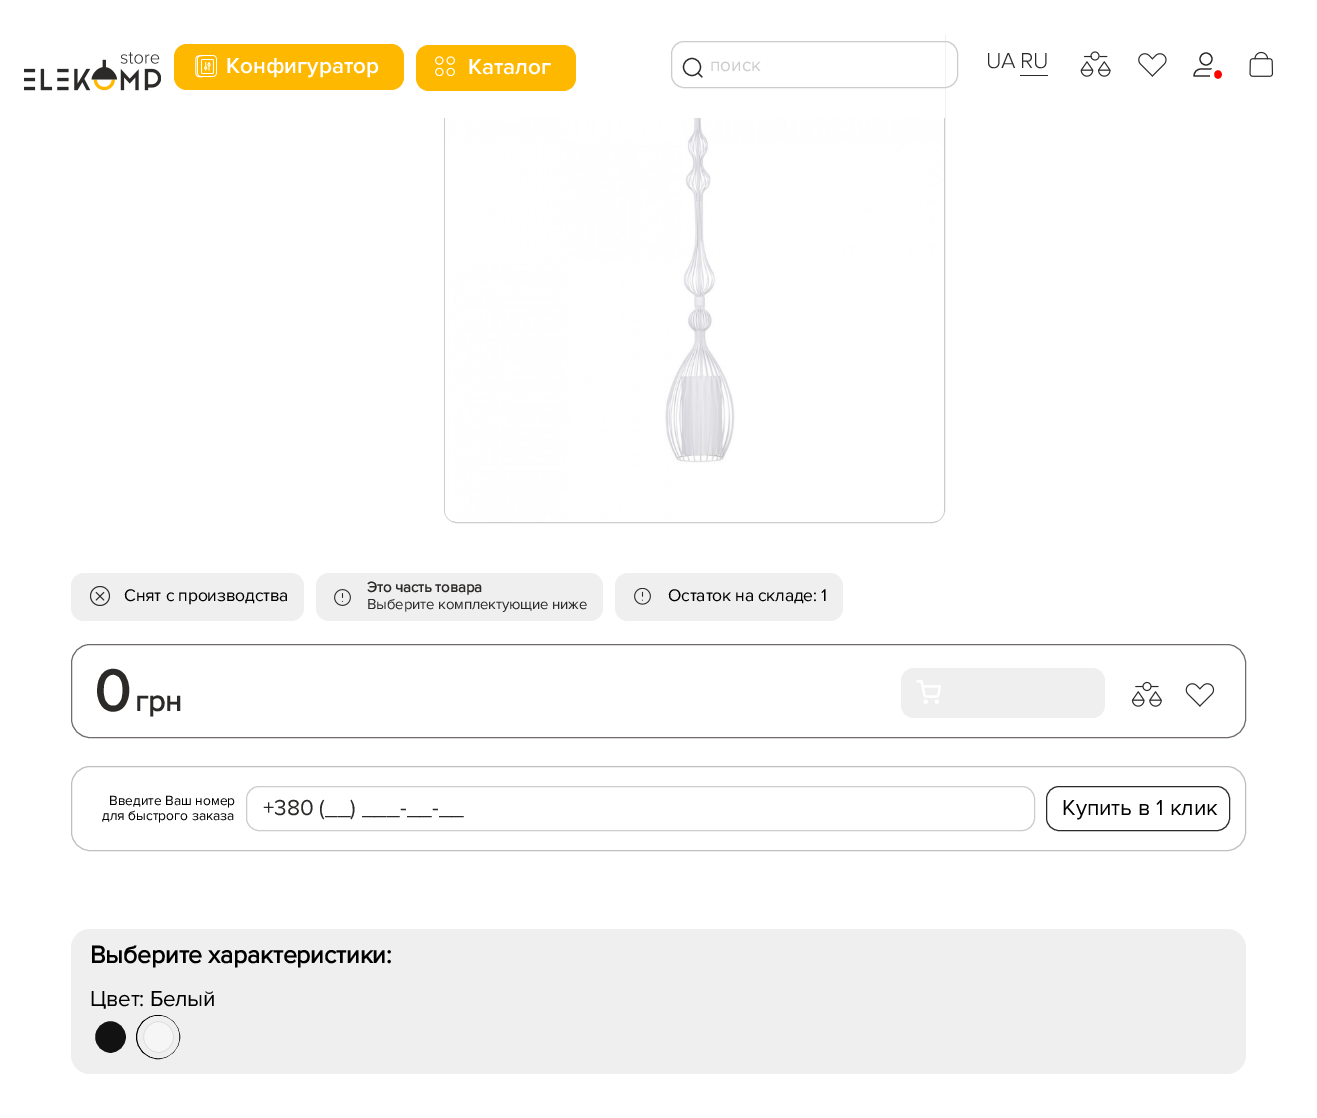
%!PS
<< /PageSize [1317 1118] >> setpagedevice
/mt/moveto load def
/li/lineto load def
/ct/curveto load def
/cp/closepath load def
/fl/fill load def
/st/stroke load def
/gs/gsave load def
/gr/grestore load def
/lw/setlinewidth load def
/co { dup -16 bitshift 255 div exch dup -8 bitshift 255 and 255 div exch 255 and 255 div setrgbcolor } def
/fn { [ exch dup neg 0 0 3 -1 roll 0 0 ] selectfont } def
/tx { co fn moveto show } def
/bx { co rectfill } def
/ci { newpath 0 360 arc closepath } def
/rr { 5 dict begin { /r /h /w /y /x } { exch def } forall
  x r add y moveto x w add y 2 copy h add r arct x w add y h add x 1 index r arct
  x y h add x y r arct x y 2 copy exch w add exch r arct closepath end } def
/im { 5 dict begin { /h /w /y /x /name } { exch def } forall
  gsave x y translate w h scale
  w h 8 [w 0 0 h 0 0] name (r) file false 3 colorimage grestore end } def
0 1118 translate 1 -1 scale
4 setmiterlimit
0 0 1317 1118 16#FFFFFF bx
16#CCCCCC co
444.5 23.5 500 499 12.5 rr st
444 23 501 95 16#FFFFFF bx
(media/1.raw) 24 52 137 39 im
16#FFB800 co
174 44 230 46 13 rr fl
(media/2.raw) 195 55 22 23 im
416 45 160 46 13 rr fl
(media/3.raw) 435 56 20 20 im
16#CCCCCC co
671.5 41.5 286 46 12.5 rr st
16#2B2A29 co
1.2 lw
692 67 8.5 ci st
1 setlinecap
702 77 mt 698 73 li st
1020 75 28 1 16#2B2A29 bx
(media/4.raw) 1080 51 31 26 im
(media/5.raw) 1138 53 29 24 im
0 setlinecap
1206 59 6 ci st
1 setlinecap
1 setlinejoin
1211.5 69 mt 1201 69 li 1197 69 1194 72 1194 76 ct 1219 76 li 1219 72 1215.5 69 1211.5 69 ct cp st
16#FF0000 co
1212 68 12 13 6 rr gs fl gr
16#FFFFFF co
4 lw
0 setlinecap
0 setlinejoin
st
(media/6.raw) 1249 51 25 26 im
(media/7.raw) 445 118 499 403 im
16#EFEFEF co
71 573 233 48 13 rr fl
(media/8.raw) 90 586 20 20 im
316 573 287 48 13 rr fl
(media/9.raw) 334 589 17 17 im
615 573 228 48 13 rr fl
(media/10.raw) 634 588 17 17 im
16#706C6C co
1 lw
71.5 644.5 1174 93 18.5 rr st
16#EFEFEF co
901 668 204 50 13 rr fl
(media/11.raw) 916 680 25 24 im
(media/12.raw) 1131 681 31 26 im
(media/13.raw) 1185 683 30 24 im
16#BFBFBF co
71.5 766.5 1174 84 18.5 rr st
16#CCCCCC co
246.5 786.5 788 44 12.5 rr st
16#2B2A29 co
1046.5 786.5 183 44 12.5 rr st
16#EFEFEF co
71 929 1175 145 19 rr fl
16#121212 co
92.5 1018.5 36 37 18 rr gs fl gr
16#EFEFEF co
5 lw
st
16#000000 co
1 lw
158 1037 21.5 ci st
16#F6F6F6 co
138 1016 41 42 20.5 rr fl
16#DDDDDD co
143.5 1021.5 30 31 15 rr st
16#EFEFEF co
5 lw
140.5 1018.5 36 37 18 rr st
(Конфигуратор) 226 73 /ProximaNova-SemiBold 22.5 16#FFFFFF tx
(Каталог) 468 74 /ProximaNova-SemiBold 22.5 16#FFFFFF tx
(поиск) 710 71 /ProximaNova-Regular 19 16#CCCCCC tx
/ProximaNova-Light 22.5 fn
16#2B2A29 co
986 68 mt -.25 0 (UA) ashow
1020 68 mt -.25 0 (RU) ashow
/ProximaNova-Regular 17.5 fn
16#000000 co
124 601 mt -.2 0 (Снят с производства) ashow
/ProximaNova-Bold 15 fn
16#2B2A29 co
367 592 mt -.15 0 (Это часть товара) ashow
/ProximaNova-Regular 15 fn
367 609 mt -.15 0 (Выберите комплектующие ниже) ashow
/ProximaNova-Regular 17.5 fn
16#000000 co
668 601 mt -.2 0 (Остаток на складе: 1) ashow
/ProximaNova-Bold 60 fn
16#2B2A29 co
94 711 mt -1 0 (0) ashow
(грн) 135 711 /ProximaNova-Bold 30 16#2B2A29 tx
(Введите Ваш номер) 109 805 /ProximaNova-Regular 13.75 16#000000 tx
(для быстрого заказа) 102 820 /ProximaNova-Regular 13.75 16#000000 tx
(+380 \(__\) ___-__-__) 263 815 /ProximaNova-Regular 22.5 16#2B2A29 tx
(Купить в 1 клик) 1062 815 /ProximaNova-Regular 22.5 16#000000 tx
/ProximaNova-Bold 25 fn
90 963 mt -.25 0 (Выберите характеристики:) ashow
/ProximaNova-Regular 22.5 fn
90 1006 mt -.25 0 (Цвет: Белый) ashow
showpage
